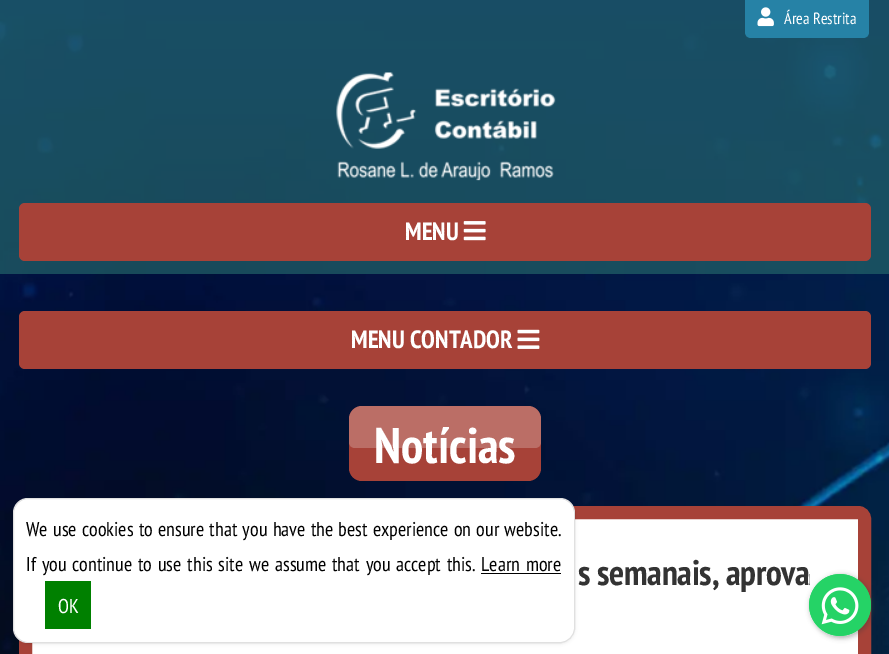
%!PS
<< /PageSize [889 654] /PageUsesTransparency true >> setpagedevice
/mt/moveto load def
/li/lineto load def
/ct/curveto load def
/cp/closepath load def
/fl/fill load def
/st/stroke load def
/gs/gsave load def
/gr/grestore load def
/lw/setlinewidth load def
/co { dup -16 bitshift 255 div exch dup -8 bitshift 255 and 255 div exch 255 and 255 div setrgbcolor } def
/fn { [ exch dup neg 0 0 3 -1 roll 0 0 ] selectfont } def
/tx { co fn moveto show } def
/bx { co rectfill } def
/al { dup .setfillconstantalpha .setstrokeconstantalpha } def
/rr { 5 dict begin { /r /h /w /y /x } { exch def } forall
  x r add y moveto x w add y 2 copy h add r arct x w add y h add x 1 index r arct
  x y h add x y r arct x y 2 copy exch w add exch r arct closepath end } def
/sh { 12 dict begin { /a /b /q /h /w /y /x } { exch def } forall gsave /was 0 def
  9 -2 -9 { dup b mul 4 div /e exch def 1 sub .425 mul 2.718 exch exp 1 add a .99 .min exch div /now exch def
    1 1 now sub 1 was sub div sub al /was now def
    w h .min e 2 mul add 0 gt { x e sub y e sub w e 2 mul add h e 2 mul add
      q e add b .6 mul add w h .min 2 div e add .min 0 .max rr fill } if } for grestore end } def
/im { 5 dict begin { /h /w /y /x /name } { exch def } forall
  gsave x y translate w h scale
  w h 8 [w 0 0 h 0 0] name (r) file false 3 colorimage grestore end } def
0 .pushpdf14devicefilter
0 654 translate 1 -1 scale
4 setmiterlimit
0 0 889 654 16#FFFFFF bx
(media/1.raw) 0 0 889 654 im
25.5 512.5 839 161 6.5 rr gs fl gr
16#A74238 co
13 lw
st
16#000000 co
13 499 562 145 15 1.5 .07 sh
16#FFFFFF co
13 498 562 145 15 rr fl
0.12 al
16#000000 co
1 lw
13.5 498.5 561 144 14.5 rr st
1 al
481 573 80 1 16#000000 bx
45 581 46 48 16#008000 bx
0.65 al
0 0 889 274 16#25696B bx
1 al
16#2682A6 co
745 0 mt 869 0 li 869 32 li 869 35.5 866.5 38 863 38 ct 751 38 li 747.5 38 745 35.5 745 32 ct cp fl
(media/2.raw) 757 7 17 20 im
(media/3.raw) 336 72 220 109 im
16#A74238 co
19 203 852 58 6 rr fl
(media/4.raw) 463 221 23 20 im
19 311 852 58 6 rr fl
(media/5.raw) 517 329 23 20 im
349 406 192 75 13 rr fl
16#3C3C3C co
810 575 63 63 31.5 2.5 .4 sh
/PTSansNarrow-Regular 20 fn
16#000000 co
26 536 mt 1 0 32 (We use cookies to ensure that you have the best experience on our website.) widthshow
26 571 mt 1.5 0 32 (If you continue to use this site we assume that you accept this.) widthshow
481 571 mt 1.5 0 32 (Learn more) widthshow
(OK) 58 613 /PTSansNarrow-Regular 20 16#FFFFFF tx
(Área Restrita) 784 24 /PTSansNarrow-Regular 16.25 16#FFFFFF tx
(MENU) 405 240 /PTSansNarrow-Bold 25 16#FFFFFF tx
(MENU CONTADOR) 351 348 /PTSansNarrow-Bold 25 16#FFFFFF tx
(Notícias) 374 463 /PTSansNarrow-Bold 50 16#FFFFFF tx
0.23 al
362 406 mt 528 406 li 535 406 541 412 541 419 ct 541 442 li 541 445.5 538.5 448 535 448 ct 355 448 li 351.5 448 349 445.5 349 442 ct 349 419 li 349 412 355 406 362 406 ct cp fl
/PTSansNarrow-Bold 35.5 fn
1 al
16#333333 co
578 585 mt -.3 0 (s semanais, aprova) ashow
(media/6.raw) 809 574 62 62 im
.poppdf14devicefilter showpage
